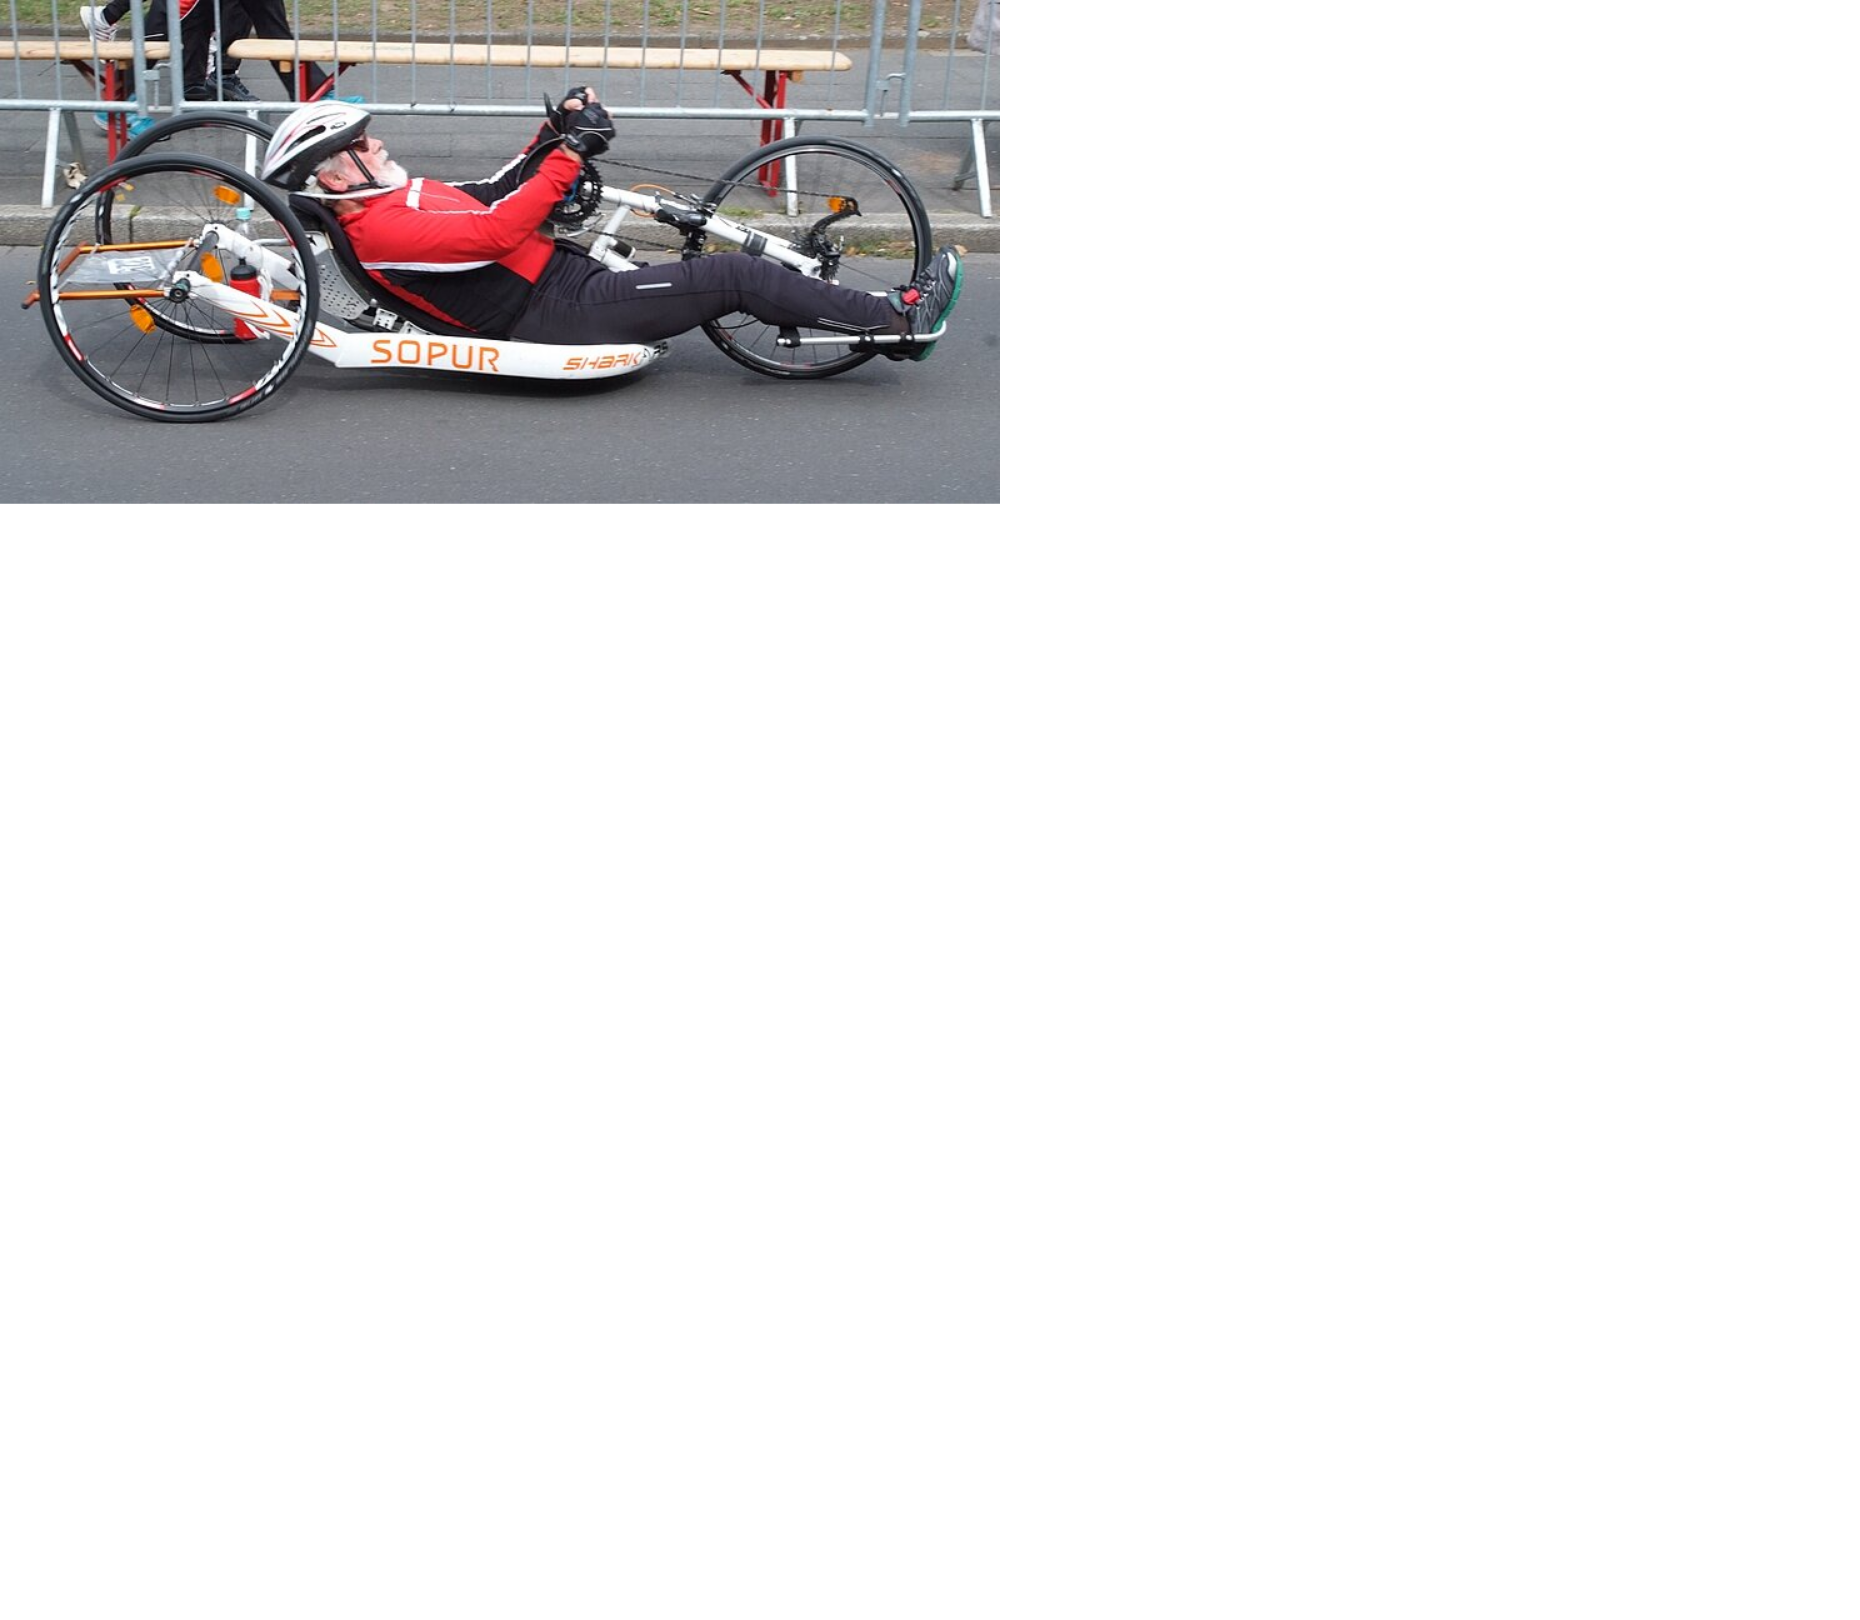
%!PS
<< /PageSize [1860 1620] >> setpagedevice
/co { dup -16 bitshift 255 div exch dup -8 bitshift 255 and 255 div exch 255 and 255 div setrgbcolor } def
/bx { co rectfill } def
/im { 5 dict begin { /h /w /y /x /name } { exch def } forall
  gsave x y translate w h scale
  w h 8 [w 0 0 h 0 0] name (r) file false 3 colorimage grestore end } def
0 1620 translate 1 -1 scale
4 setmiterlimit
0 0 1860 1620 16#FFFFFF bx
(media/1.raw) 0 0 1000 504 im
showpage
